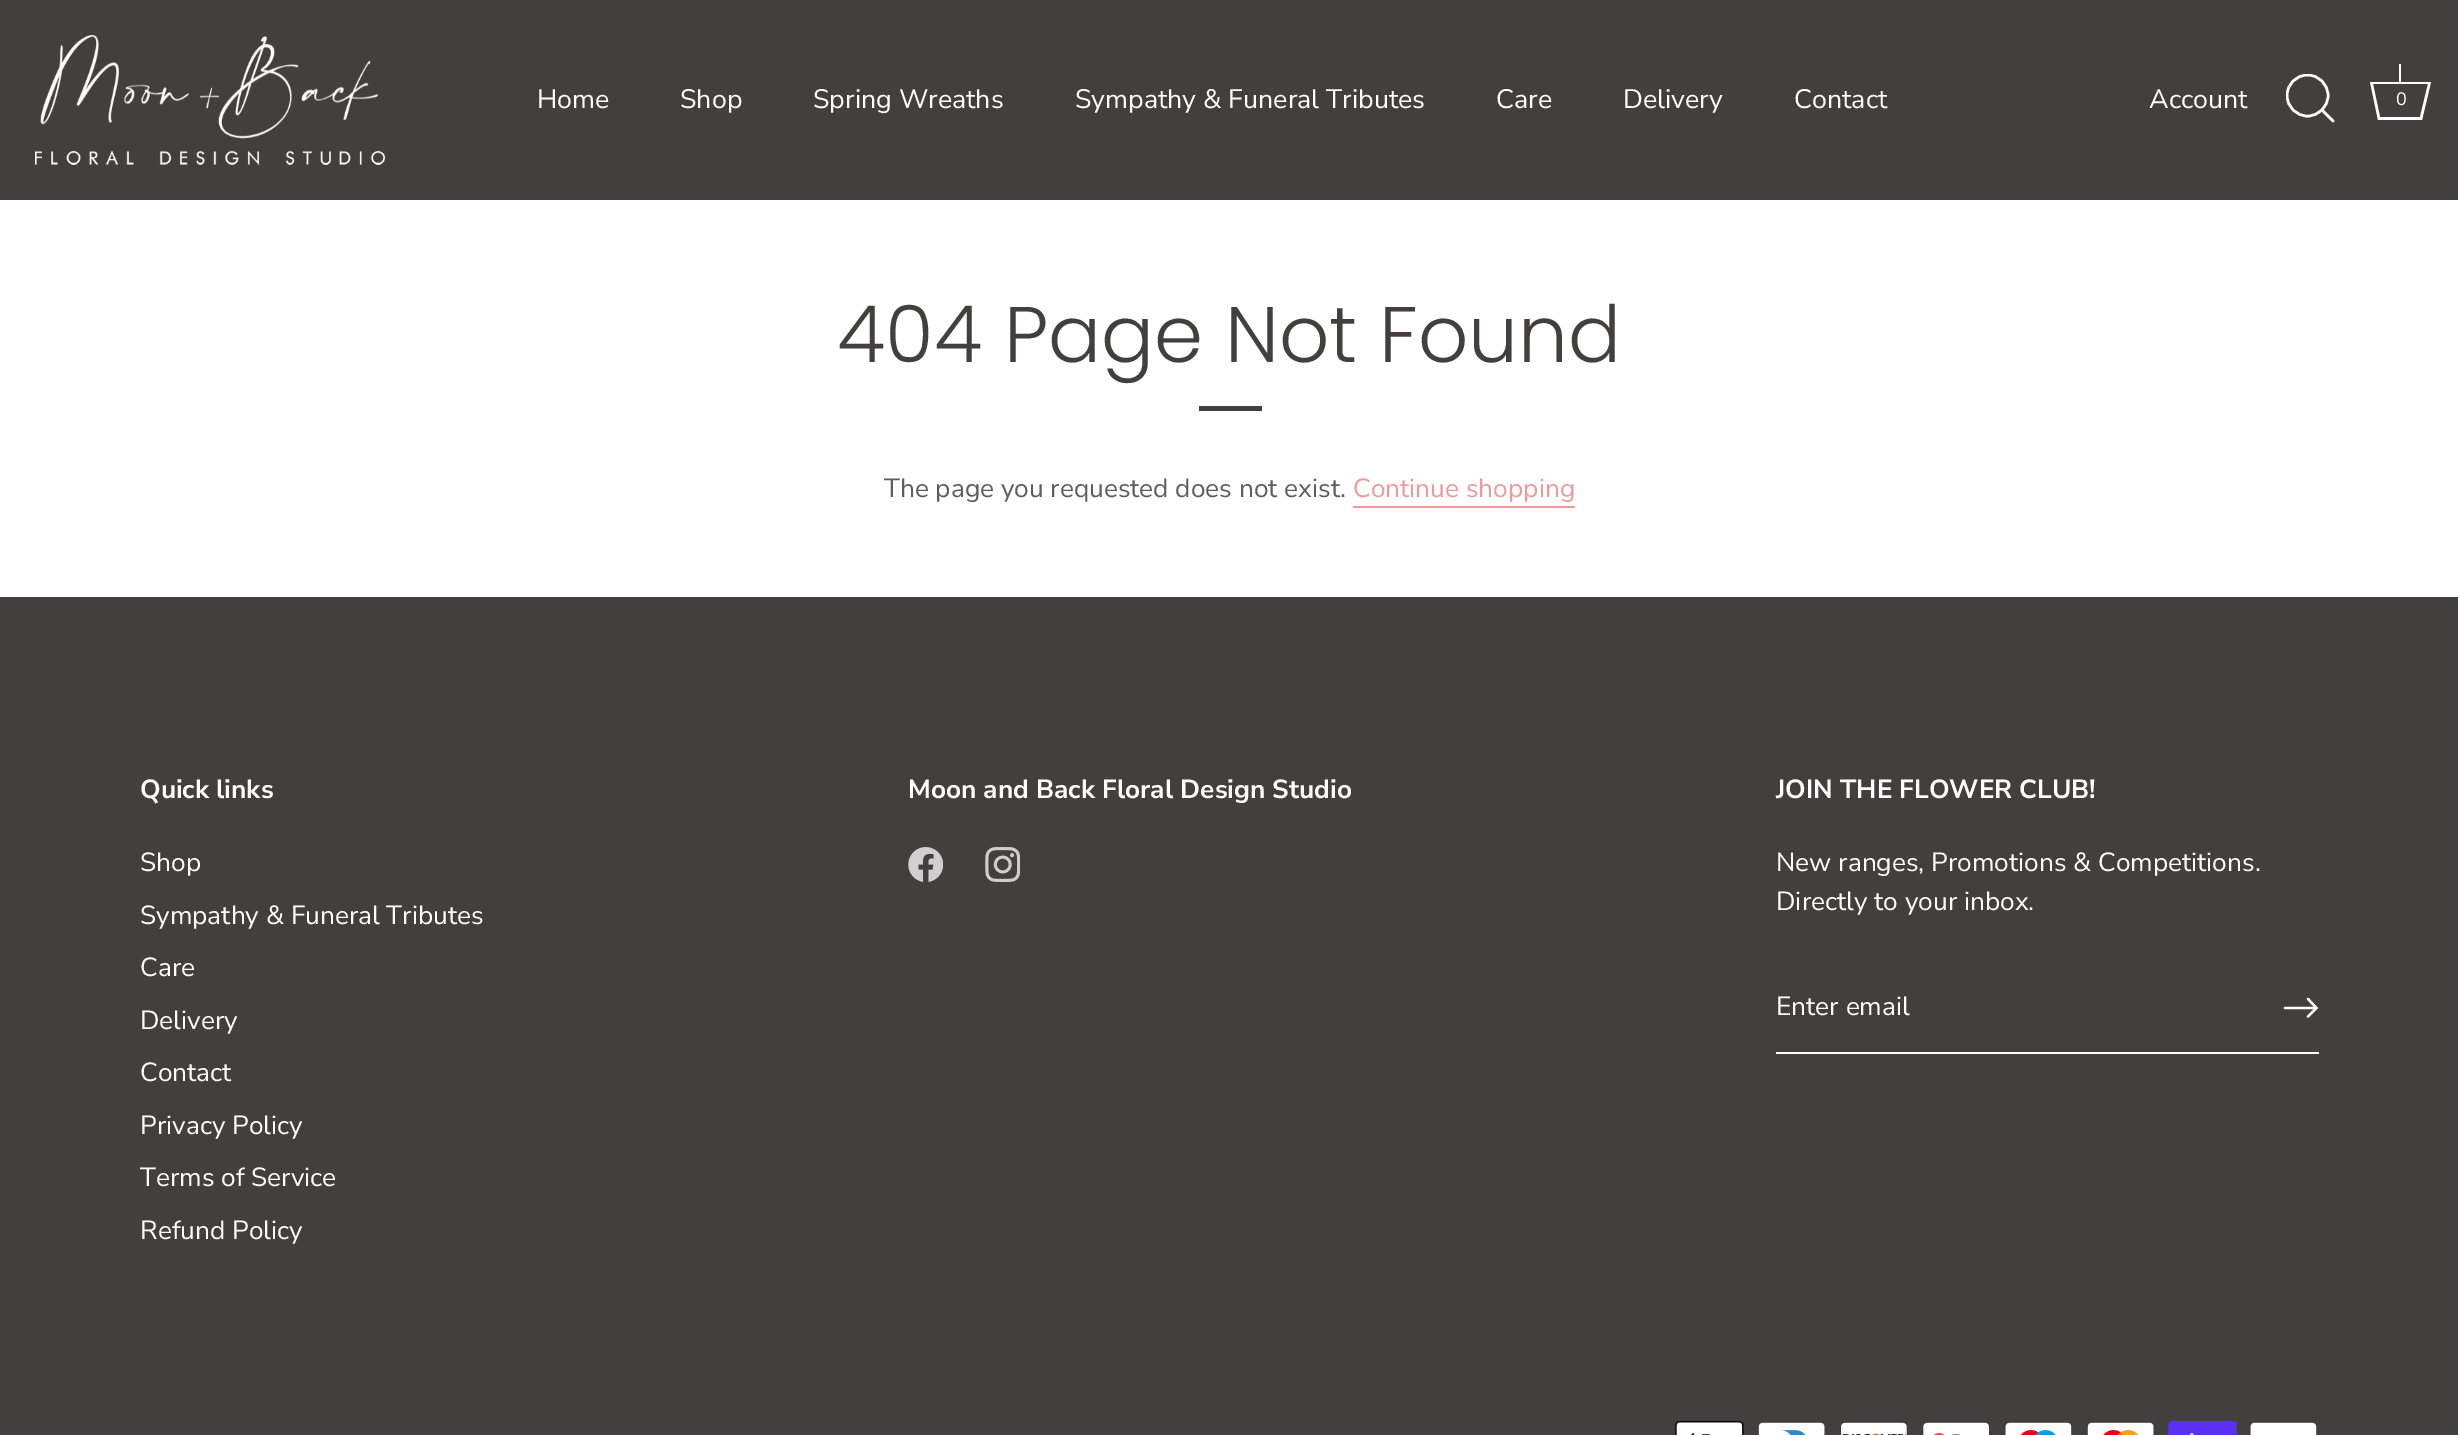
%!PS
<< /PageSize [2458 1435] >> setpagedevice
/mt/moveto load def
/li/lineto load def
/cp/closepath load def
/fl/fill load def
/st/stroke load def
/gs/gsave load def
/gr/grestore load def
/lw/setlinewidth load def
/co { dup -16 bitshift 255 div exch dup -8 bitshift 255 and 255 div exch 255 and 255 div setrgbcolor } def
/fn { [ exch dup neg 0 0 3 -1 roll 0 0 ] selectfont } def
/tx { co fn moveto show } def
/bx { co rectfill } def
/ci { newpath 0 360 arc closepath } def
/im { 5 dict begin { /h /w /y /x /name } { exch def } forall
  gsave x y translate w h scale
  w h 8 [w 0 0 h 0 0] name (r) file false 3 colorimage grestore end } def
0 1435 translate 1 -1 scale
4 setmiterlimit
0 0 2458 1435 16#FFFFFF bx
0 0 2458 200 16#423F3F bx
(media/1.raw) 35 35 350 130 im
gs
2286 74 50 50 rectclip
16#FFFFFF co
2.5 lw
2307.5 95.5 20.5 ci st
gr
16#FFFFFF co
2.5 lw
1 setlinecap
1 setlinejoin
2333 121 mt 2322 110 li st
2399 64 2 18 16#FFFFFF bx
2428 84 mt 2420 117 li 2380 117 li 2373 84 li 2428 84 li 2431 82 mt 2370 82 li 2378 120 li 2422 120 li cp fl
1199 406 63 5 16#423F3F bx
1353 506 222 2 16#EF9A9A bx
0 597 2458 838 16#423F3F bx
(media/2.raw) 908 847 35 35 im
(media/3.raw) 985 847 35 35 im
1776 1052 543 2 16#FFFFFF bx
2.3 lw
0 setlinejoin
2308 1016.5 mt 2316.5 1008 li 2308 999 li st
1 setlinejoin
2315.5 1008 mt 2285 1008 li st
(media/4.raw) 1675 1421 69 14 im
(media/5.raw) 1758 1422 67 13 im
(media/6.raw) 1840 1421 68 14 im
(media/7.raw) 1922 1421 68 14 im
(media/8.raw) 2005 1422 67 13 im
(media/9.raw) 2087 1422 67 13 im
(media/10.raw) 2168 1421 69 14 im
(media/11.raw) 2250 1422 67 13 im
(Home) 537 108 /NunitoSans-Regular 26.75 16#FFFFFF tx
(Shop) 680 108 /NunitoSans-Regular 26.75 16#FFFFFF tx
(Spring Wreaths) 813 108 /NunitoSans-Regular 26.75 16#FFFFFF tx
(Sympathy & Funeral Tributes) 1075 108 /NunitoSans-Regular 26.75 16#FFFFFF tx
(Care) 1496 108 /NunitoSans-Regular 26.75 16#FFFFFF tx
(Delivery) 1623 108 /NunitoSans-Regular 26.75 16#FFFFFF tx
(Contact) 1794 108 /NunitoSans-Regular 26.75 16#FFFFFF tx
(Account) 2149 108 /NunitoSans-Regular 26.75 16#FFFFFF tx
(0) 2396 105 /NunitoSans-Regular 18 16#FFFFFF tx
(404 Page Not Found) 837 362 /Poppins-Light 78.75 16#423F3F tx
(The page you requested does not exist.) 884 497 /NunitoSans-Regular 26.25 16#5E5C5C tx
(Continue shopping) 1353 497 /NunitoSans-Regular 26.25 16#EF9A9A tx
(Quick links) 140 798 /NunitoSans-Bold 26.25 16#FFFFFF tx
(Shop) 140 871 /NunitoSans-Regular 26.25 16#FFFFFF tx
(Sympathy & Funeral Tributes) 140 924 /NunitoSans-Regular 26.25 16#FFFFFF tx
(Care) 140 976 /NunitoSans-Regular 26.25 16#FFFFFF tx
(Delivery) 140 1029 /NunitoSans-Regular 26.25 16#FFFFFF tx
(Contact) 140 1081 /NunitoSans-Regular 26.25 16#FFFFFF tx
(Privacy Policy) 140 1134 /NunitoSans-Regular 26.25 16#FFFFFF tx
(Terms of Service) 140 1186 /NunitoSans-Regular 26.25 16#FFFFFF tx
(Refund Policy) 140 1239 /NunitoSans-Regular 26.25 16#FFFFFF tx
(Moon and Back Floral Design Studio) 908 798 /NunitoSans-Bold 26.25 16#FFFFFF tx
(JOIN THE FLOWER CLUB!) 1776 798 /NunitoSans-Bold 26.25 16#FFFFFF tx
(New ranges, Promotions & Competitions.) 1776 871 /NunitoSans-Regular 26.25 16#FFFFFF tx
(Directly to your inbox.) 1776 910 /NunitoSans-Regular 26.25 16#FFFFFF tx
(Enter email) 1776 1015 /NunitoSans-Regular 26.25 16#FFFFFF tx
showpage
